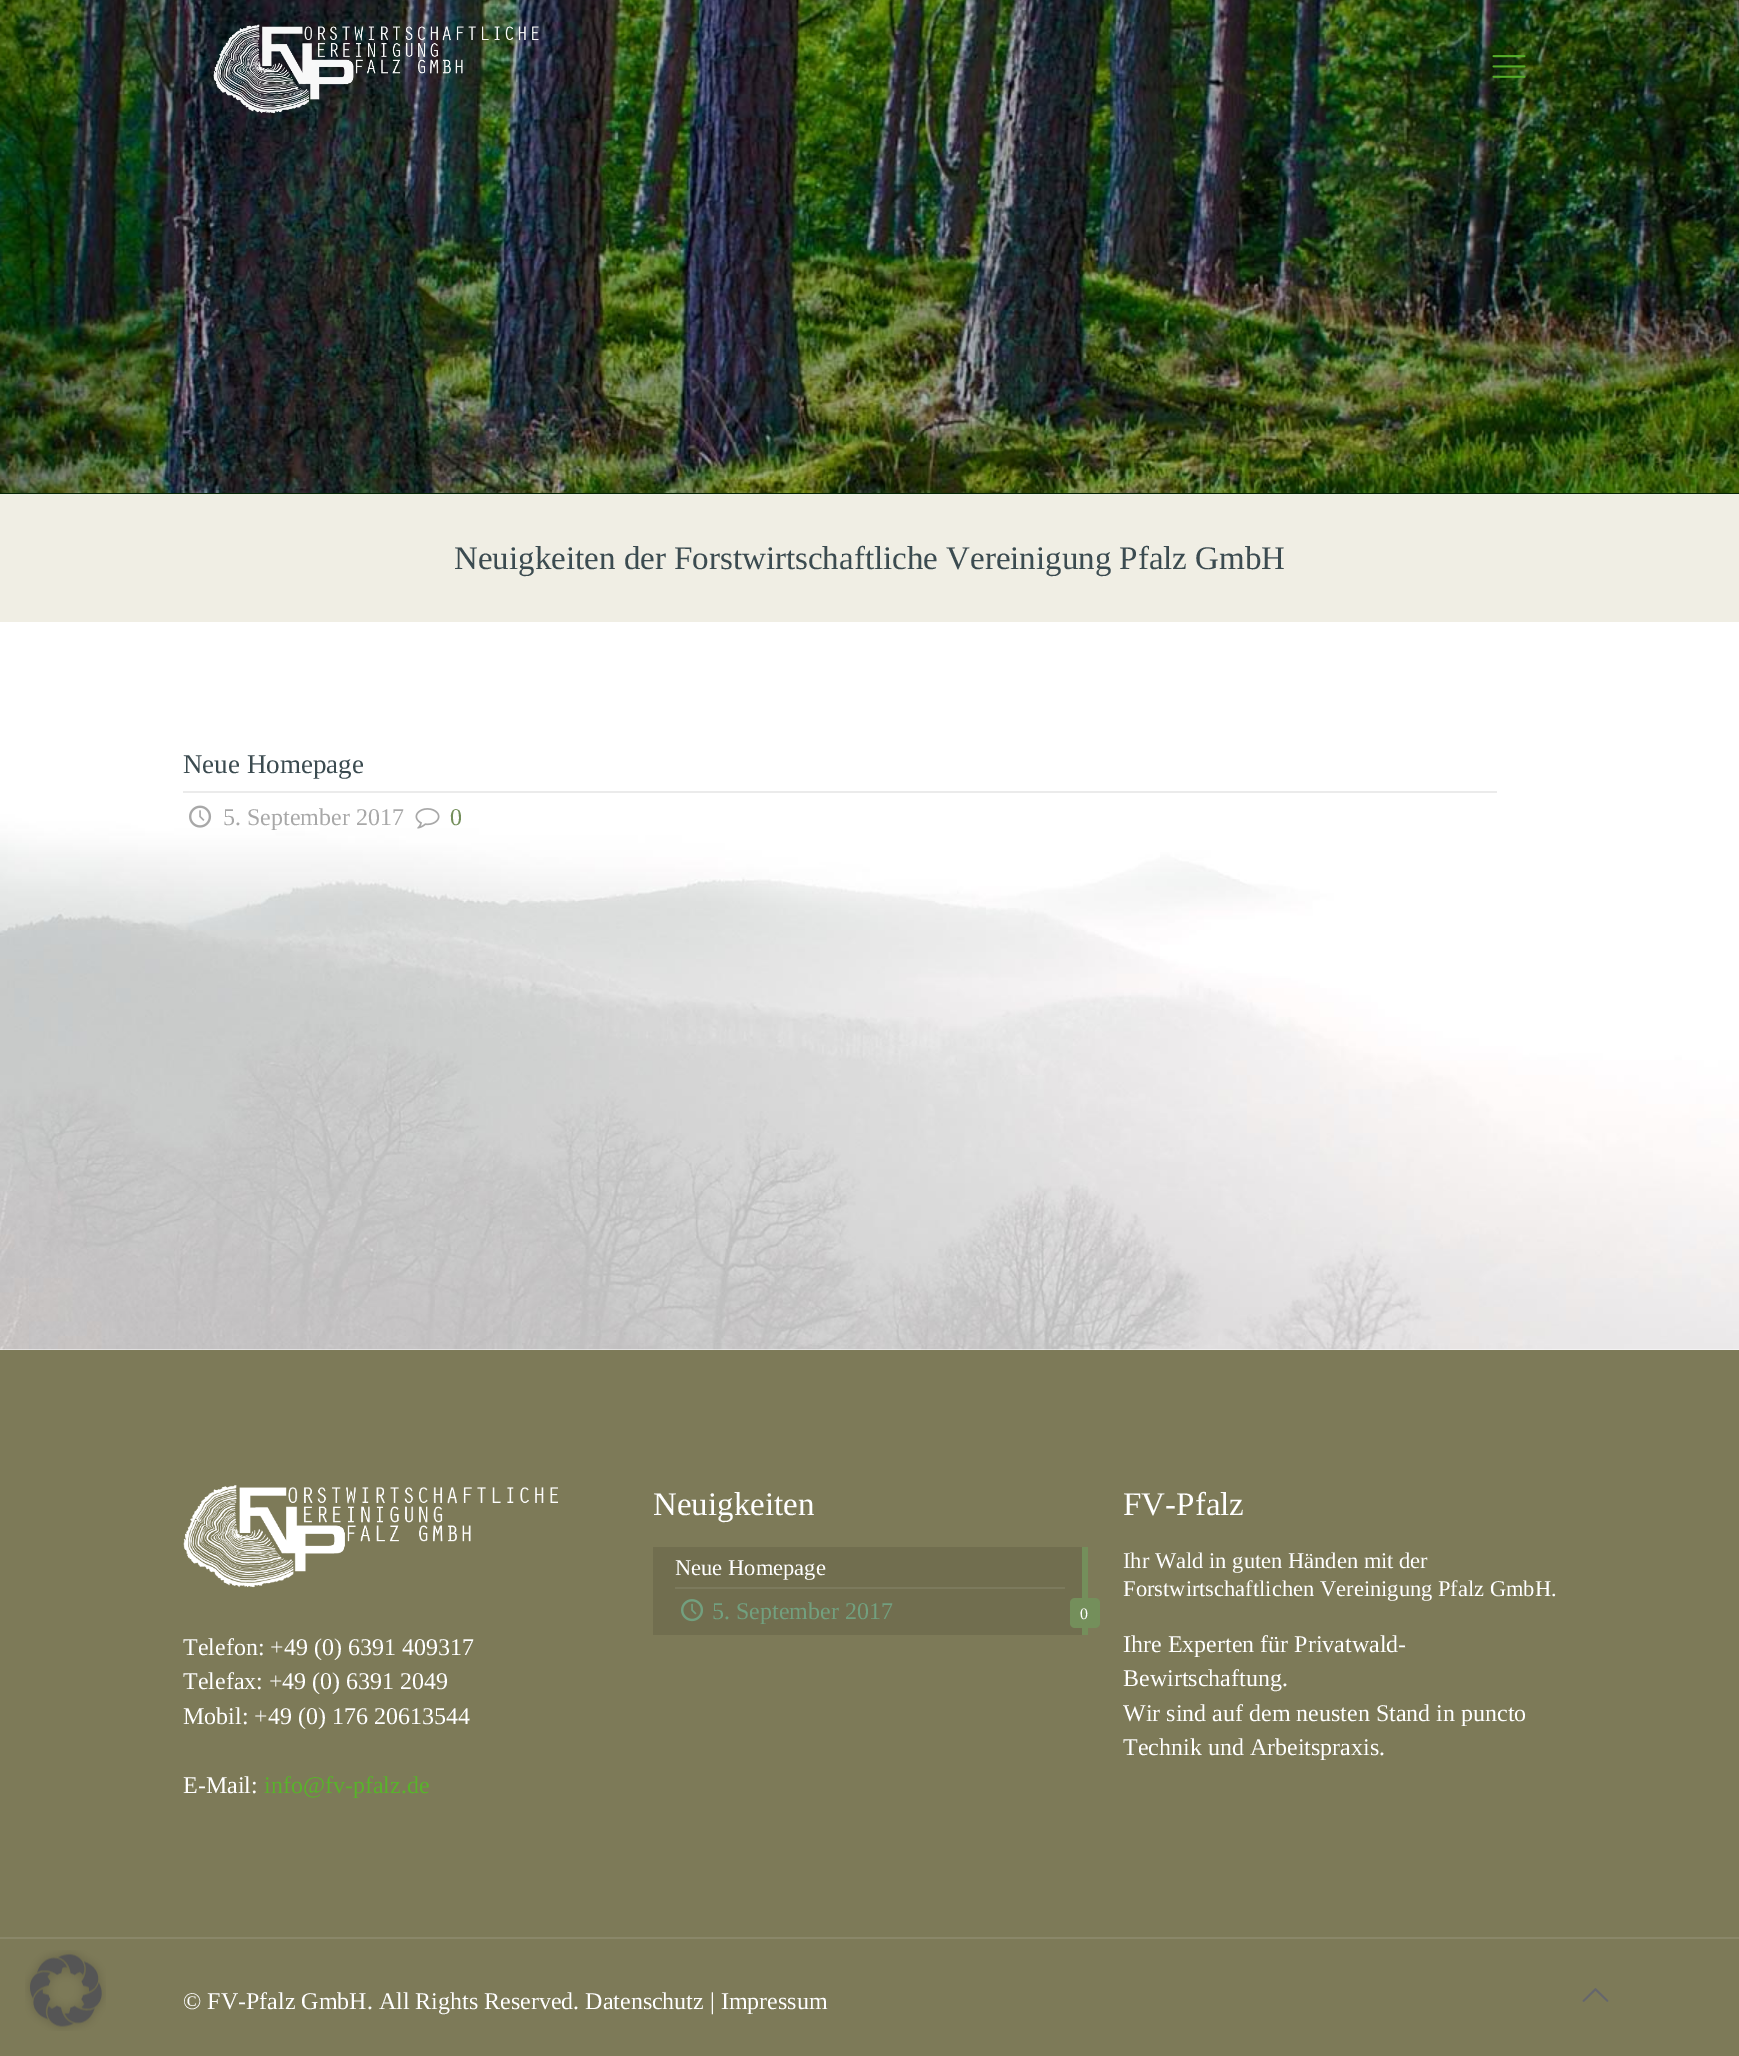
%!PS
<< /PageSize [1739 2056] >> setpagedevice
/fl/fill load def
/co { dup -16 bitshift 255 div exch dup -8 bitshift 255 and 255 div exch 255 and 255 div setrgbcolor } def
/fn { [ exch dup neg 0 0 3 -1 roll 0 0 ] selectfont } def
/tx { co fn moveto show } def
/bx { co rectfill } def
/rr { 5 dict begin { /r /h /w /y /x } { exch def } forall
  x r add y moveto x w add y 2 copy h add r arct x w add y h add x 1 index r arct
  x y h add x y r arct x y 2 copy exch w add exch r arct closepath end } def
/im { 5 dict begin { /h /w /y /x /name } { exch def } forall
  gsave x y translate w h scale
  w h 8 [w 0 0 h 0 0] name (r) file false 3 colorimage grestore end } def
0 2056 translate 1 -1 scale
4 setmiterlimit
0 0 1739 2056 16#FFFFFF bx
0 1350 1739 706 16#7D7A58 bx
(media/1.raw) 25 1950 81 81 im
0 493 1739 1 16#052606 bx
(media/2.raw) 0 0 1739 493 im
(media/3.raw) 213 24 326 90 im
(media/4.raw) 1492 55 34 23 im
0 494 1739 128 16#F0EEE4 bx
(media/5.raw) 0 622 1739 728 im
183 791 1314 2 16#EBEBEB bx
(media/6.raw) 189 805 23 23 im
(media/7.raw) 415 808 25 21 im
653 1547 429 88 16#716E4F bx
675 1587 390 2 16#7C7A5D bx
1082 1547 6 88 16#748F5B bx
(media/8.raw) 681 1599 22 23 im
1070 1598 30 30 5 rr fl
(media/9.raw) 183 1485 375 103 im
0 1937 1739 2 16#8A8769 bx
(media/10.raw) 1582 1988 27 14 im
(Neuigkeiten der Forstwirtschaftliche Vereinigung Pfalz GmbH) 454 569 /LiberationSerif-Regular 33 16#3B4B50 tx
(Neue Homepage) 183 773 /LiberationSerif-Regular 27 16#3B4B50 tx
(5. September 2017) 223 825 /LiberationSerif-Regular 24 16#A8A8A8 tx
(0) 450 825 /LiberationSerif-Regular 24 16#748F5B tx
(Neuigkeiten) 653 1515 /LiberationSerif-Regular 33 16#FFFFFF tx
(Neue Homepage) 675 1575 /LiberationSerif-Regular 22.5 16#FFFFFF tx
(5. September 2017) 712 1619 /LiberationSerif-Regular 24 16#72A07F tx
(0) 1080 1619 /LiberationSerif-Regular 16 16#FFFFFF tx
(FV-Pfalz) 1123 1515 /LiberationSerif-Regular 33 16#FFFFFF tx
(Ihr Wald in guten Händen mit der) 1123 1568 /LiberationSerif-Regular 22.5 16#FFFFFF tx
(Forstwirtschaftlichen Vereinigung Pfalz GmbH.) 1123 1596 /LiberationSerif-Regular 22.5 16#FFFFFF tx
(Ihre Experten für Privatwald-) 1123 1652 /LiberationSerif-Regular 24 16#FFFFFF tx
(Bewirtschaftung.) 1123 1686 /LiberationSerif-Regular 24 16#FFFFFF tx
(Wir sind auf dem neusten Stand in puncto) 1123 1721 /LiberationSerif-Regular 24 16#FFFFFF tx
(Technik und Arbeitspraxis.) 1123 1755 /LiberationSerif-Regular 24 16#FFFFFF tx
(Telefon: +49 \(0\) 6391 409317) 183 1655 /LiberationSerif-Regular 24 16#FFFFFF tx
(Telefax: +49 \(0\) 6391 2049) 183 1689 /LiberationSerif-Regular 24 16#FFFFFF tx
(Mobil: +49 \(0\) 176 20613544) 183 1724 /LiberationSerif-Regular 24 16#FFFFFF tx
(E-Mail:) 183 1793 /LiberationSerif-Regular 24 16#FFFFFF tx
(info@fv-pfalz.de) 264 1793 /LiberationSerif-Regular 24 16#58B32B tx
(© FV-Pfalz GmbH. All Rights Reserved. Datenschutz | Impressum) 183 2009 /LiberationSerif-Regular 24 16#FFFFFF tx
showpage
